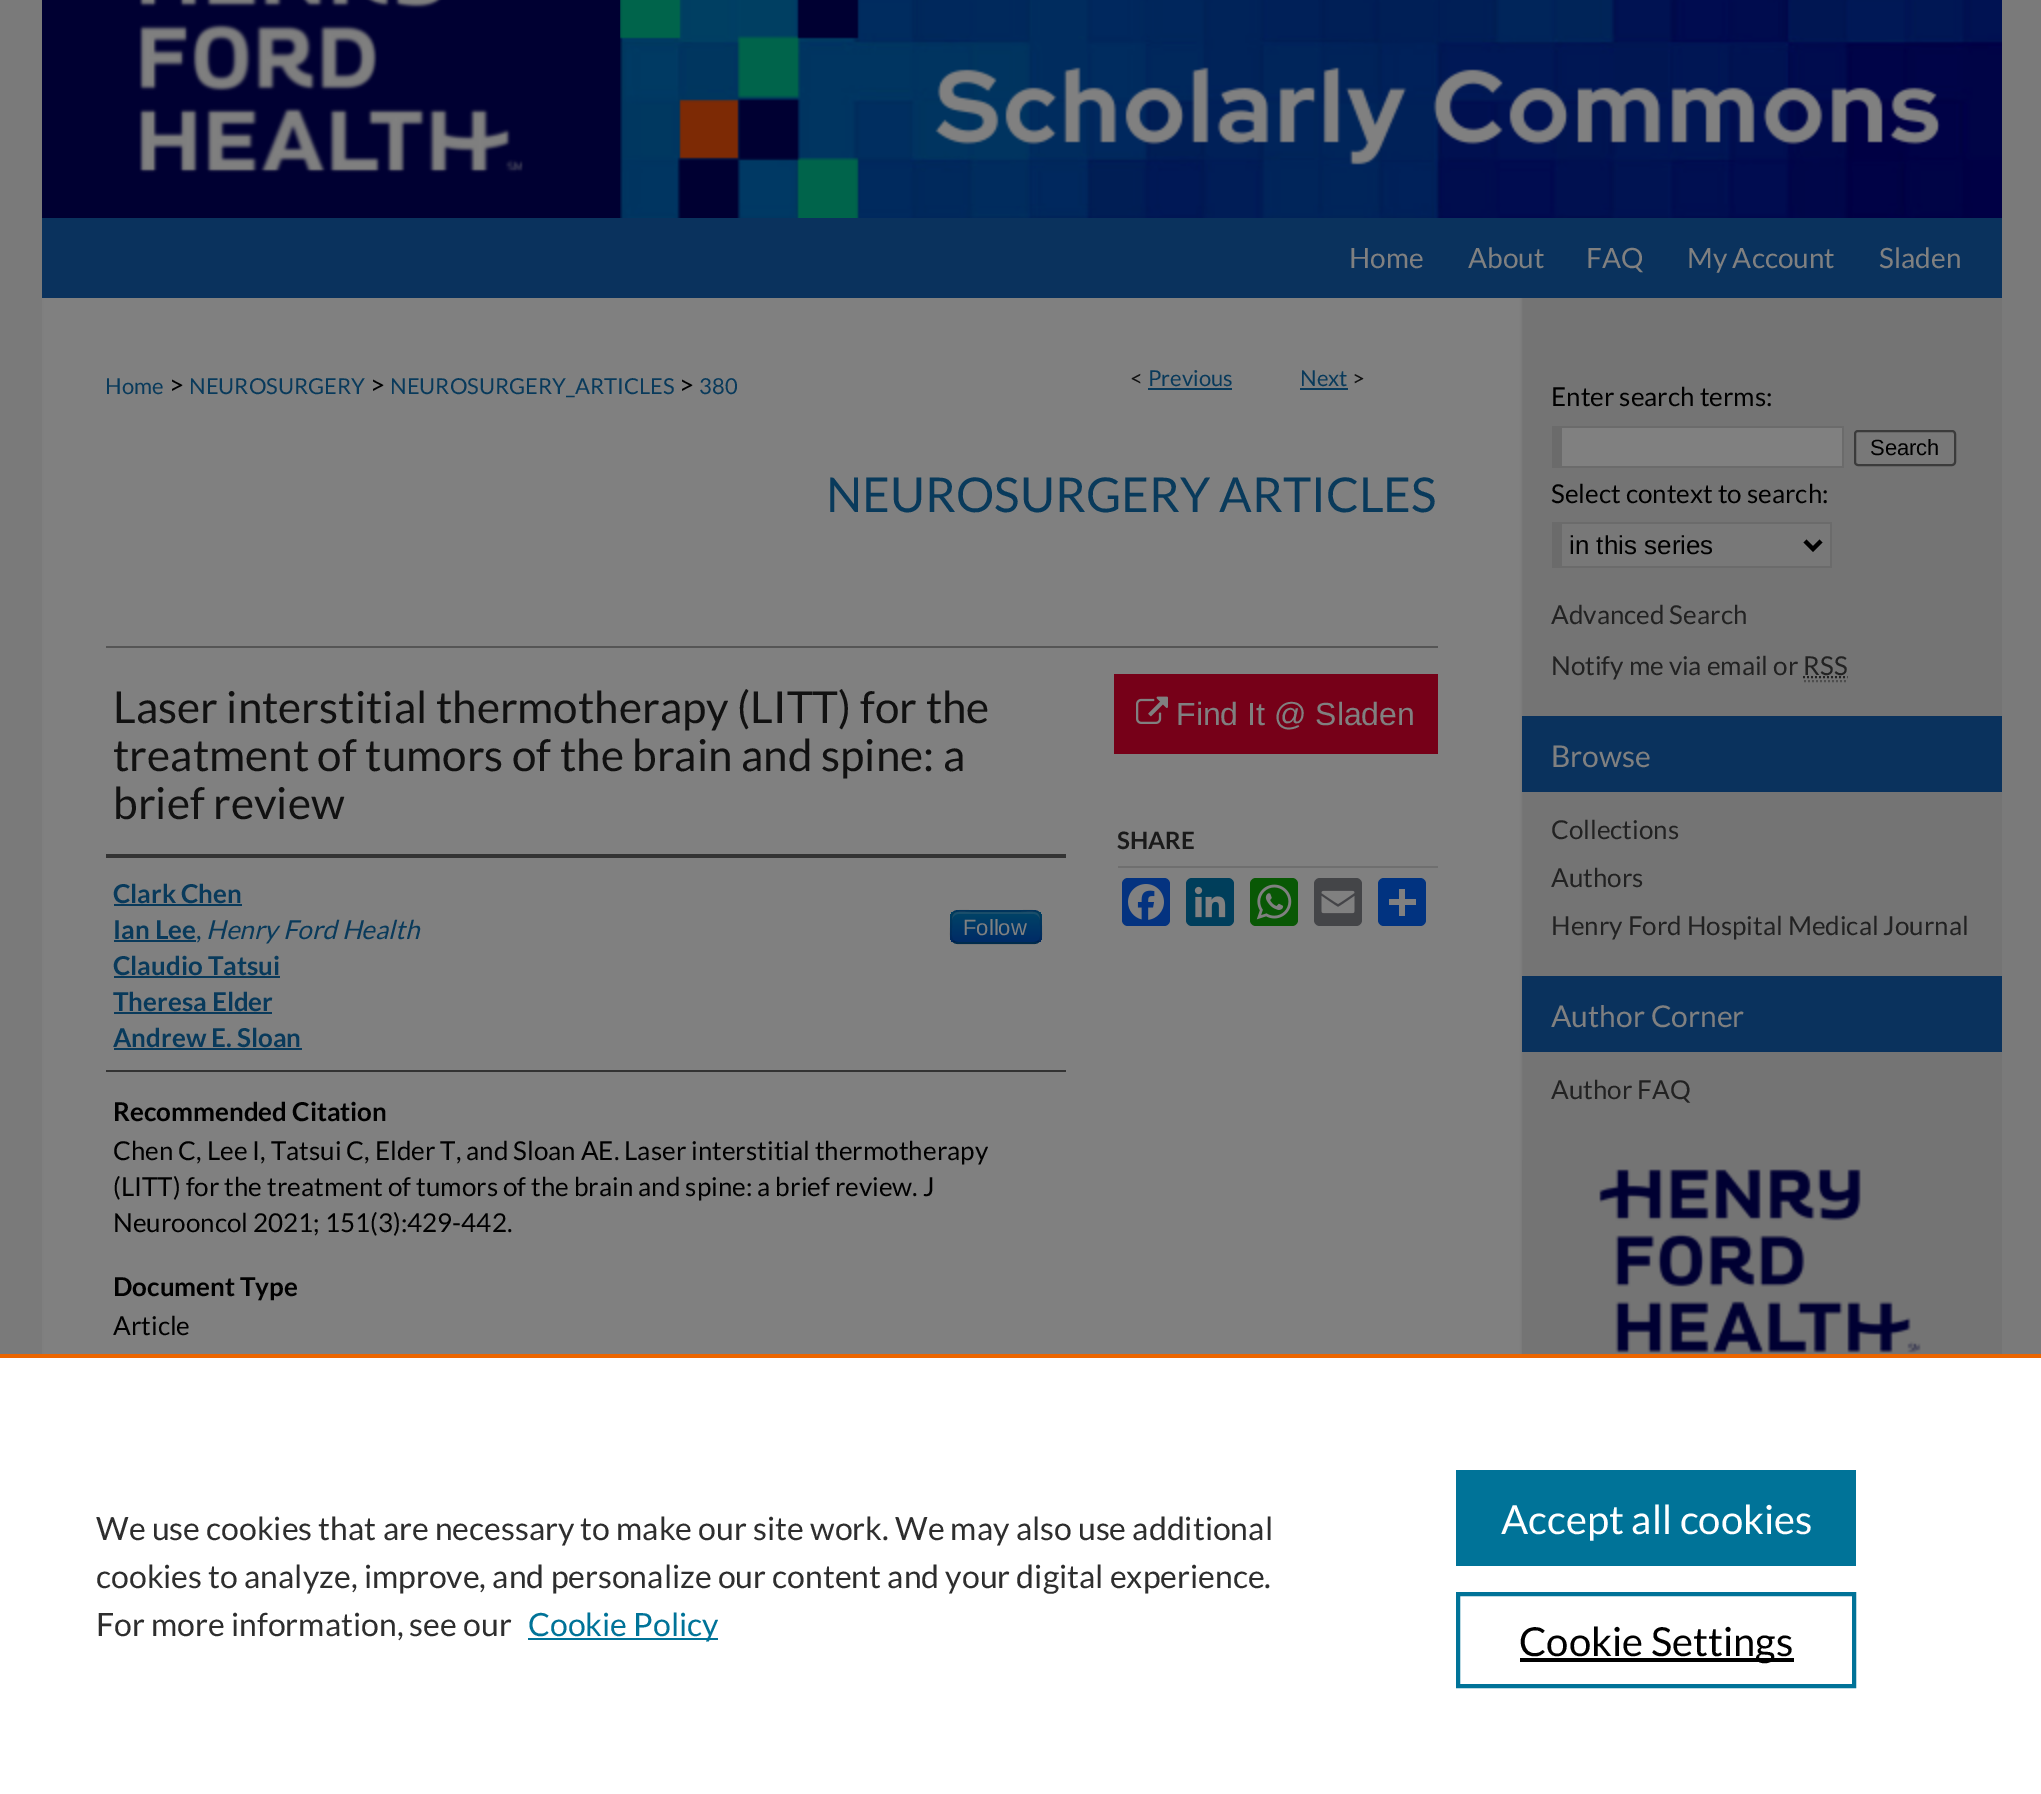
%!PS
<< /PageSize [2041 1794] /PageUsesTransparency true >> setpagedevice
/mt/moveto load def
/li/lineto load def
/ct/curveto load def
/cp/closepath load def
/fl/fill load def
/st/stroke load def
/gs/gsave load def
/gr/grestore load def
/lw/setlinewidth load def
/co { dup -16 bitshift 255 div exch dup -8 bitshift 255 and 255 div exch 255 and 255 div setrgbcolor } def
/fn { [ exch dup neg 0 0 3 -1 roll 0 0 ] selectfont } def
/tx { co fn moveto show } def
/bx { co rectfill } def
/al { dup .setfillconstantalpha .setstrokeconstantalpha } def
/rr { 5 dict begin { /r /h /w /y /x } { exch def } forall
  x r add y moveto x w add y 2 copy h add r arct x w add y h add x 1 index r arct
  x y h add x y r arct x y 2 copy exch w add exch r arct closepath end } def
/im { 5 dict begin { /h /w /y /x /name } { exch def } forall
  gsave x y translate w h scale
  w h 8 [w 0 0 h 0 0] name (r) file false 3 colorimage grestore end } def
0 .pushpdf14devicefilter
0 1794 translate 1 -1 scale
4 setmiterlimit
0 0 2041 1794 16#7A7A7A bx
(media/1.raw) 42 0 1960 218 im
619 0 1 218 16#000032 bx
42 218 1960 80 16#0A325D bx
(media/2.raw) 42 298 1960 1056 im
1148 388 84 2 16#093A5B bx
1300 388 48 2 16#093A5B bx
106 646 1332 2 16#555555 bx
106 854 960 4 16#333333 bx
106 1070 960 2 16#333333 bx
114 904 128 2 16#093A5B bx
114 940 82 2 16#093A5B bx
16#003A66 co
950 910 92 34 8 rr fl
gs
950 910 92 34 8 rr clip newpath
gs 950 912 mt 1042 912 li 1042 942 li 950 942 li cp clip newpath
<< /ShadingType 2 /ColorSpace /DeviceRGB /Coords [996 912 996 942] /Extend [true true] /Function << /FunctionType 2 /Domain [0 1] /C0 [0 .267 .4] /C1 [0 .169 .4] /N 1 >> >> shfill gr
gr
0.2 al
16#808080 co
958 914 mt 1034 914 li 1037 914 1040 917 1040 920 ct 1040 909 1030 912 1021 912 ct 971 912 li 962 912 952 909 952 920 ct 952 917 955 914 958 914 ct cp fl
0.25 al
16#000000 co
2 lw
1039 941 mt 1037.5 942.5 1036 943 1034 943 ct 958 943 li 956 943 954.5 942.5 953 941 ct st
0.1 al
953 941 mt 949.5 937.5 951 931.5 951 927 ct 951 909 952 911 970.5 911 ct 1021.5 911 li 1040 911 1041 909 1041 927 ct 1041 931.5 1042.5 937.5 1039 941 ct st
1 al
114 976 166 2 16#093A5B bx
114 1012 158 2 16#093A5B bx
114 1048 188 2 16#093A5B bx
1114 674 324 80 16#760018 bx
(media/3.raw) 1136 696 32 28 im
1118 866 320 2 16#6F6F6F bx
16#043380 co
1122 878 48 48 6 rr fl
(media/4.raw) 1128 884 36 36 im
16#003E5B co
1186 878 48 48 6 rr fl
(media/5.raw) 1194 886 32 32 im
16#095805 co
1250 878 48 48 6 rr fl
(media/6.raw) 1256 884 36 36 im
16#444548 co
1314 878 48 48 6 rr fl
(media/7.raw) 1321 890 34 24 im
16#013380 co
1378 878 48 48 6 rr fl
1399 889 6 27 16#808080 bx
1389 899 27 6 16#808080 bx
1562 428 280 38 16#808080 bx
1562 426 282 2 16#6B6B6B bx
1842 426 2 42 16#6B6B6B bx
1562 466 282 2 16#6B6B6B bx
1552 426 10 42 16#6B6B6B bx
16#787878 co
1855 431 100 34 3 rr gs fl gr
16#3B3B3B co
st
1562 524 268 42 16#787878 bx
1562 522 270 2 16#6B6B6B bx
1830 522 2 46 16#6B6B6B bx
1562 566 270 2 16#6B6B6B bx
1552 522 10 46 16#6B6B6B bx
16#000000 co
4 lw
1805 541 mt 1813 549 li 1821 541 li st
16#222222 co
2 lw
[2 2] 0 setdash
1803 677 mt 1847.5 677 li st
16#4D4D4D co
1804 681 mt 1848 681 li st
1522 716 480 76 16#0A325D bx
1522 976 480 76 16#0A325D bx
(media/8.raw) 1522 1160 399 194 im
0 1358 2041 436 16#FFFFFF bx
0 1354 2041 4 16#EB6500 bx
528 1638 190 2 16#007398 bx
1456 1470 400 96 16#007398 bx
4 lw
[] 0 setdash
1458 1594 396 92 rectstroke
1520 1658 274 4 16#000000 bx
(Home) 1349 268 /Lato-Regular 28 16#808080 tx
(About) 1468 268 /Lato-Regular 28 16#808080 tx
(FAQ) 1586 268 /Lato-Regular 28 16#808080 tx
(My Account) 1687 268 /Lato-Regular 28 16#808080 tx
(Sladen) 1879 268 /Lato-Regular 28 16#808080 tx
(Home) 105 394 /Lato-Regular 22 16#093A5B tx
(>) 169 394 /Lato-Regular 26 16#000000 tx
(NEUROSURGERY) 189 394 /Lato-Regular 22 16#093A5B tx
(>) 370 394 /Lato-Regular 26 16#000000 tx
(NEUROSURGERY_ARTICLES) 390 394 /Lato-Regular 22 16#093A5B tx
(>) 679 394 /Lato-Regular 26 16#000000 tx
(380) 699 394 /Lato-Regular 22 16#093A5B tx
(<) 1130 386 /Lato-Regular 22 16#111111 tx
(Previous) 1148 386 /Lato-Regular 22 16#093A5B tx
(Next) 1300 386 /Lato-Regular 22 16#093A5B tx
(>) 1352 386 /Lato-Regular 22 16#111111 tx
(NEUROSURGERY ARTICLES) 826 512 /Lato-Regular 48 16#093A5B tx
(Laser interstitial thermotherapy \(LITT\) for the) 113 723 /Lato-Regular 44 16#111111 tx
(treatment of tumors of the brain and spine: a) 113 771 /Lato-Regular 44 16#111111 tx
(brief review) 113 819 /Lato-Regular 44 16#111111 tx
(Clark Chen) 113 903 /Lato-Bold 26 16#093A5B tx
(Ian Lee) 113 939 /Lato-Bold 26 16#093A5B tx
(,) 196 939 /Lato-Regular 26 16#093A5B tx
(Henry Ford Health) 206 939 /Lato-Italic 26 16#093A5B tx
(Follow) 963 935 /LiberationSans-Regular 22 16#808080 tx
(Claudio Tatsui) 113 975 /Lato-Bold 26 16#093A5B tx
(Theresa Elder) 113 1011 /Lato-Bold 26 16#093A5B tx
(Andrew E. Sloan) 113 1047 /Lato-Bold 26 16#093A5B tx
(Recommended Citation) 113 1121 /Lato-Bold 26 16#000000 tx
(Chen C, Lee I, Tatsui C, Elder T, and Sloan AE. Laser interstitial thermotherapy) 113 1160 /Lato-Regular 26 16#000000 tx
(\(LITT\) for the treatment of tumors of the brain and spine: a brief review. J) 113 1196 /Lato-Regular 26 16#000000 tx
(Neurooncol 2021; 151\(3\):429-442.) 113 1232 /Lato-Regular 26 16#000000 tx
(Document Type) 113 1296 /Lato-Bold 26 16#000000 tx
(Article) 113 1335 /Lato-Regular 26 16#000000 tx
(Find It @ Sladen) 1176 725 /LiberationSans-Regular 32 16#808080 tx
(SHARE) 1117 849 /Lato-Bold 24 16#1A1A1A tx
(Enter search terms:) 1551 406 /Lato-Regular 26 16#000000 tx
(Search) 1870 455 /LiberationSans-Regular 22 16#000000 tx
(Select context to search:) 1551 503 /Lato-Regular 26 16#000000 tx
(in this series) 1569 554 /LiberationSans-Regular 26 16#000000 tx
(Advanced Search) 1551 624 /Lato-Regular 26 16#222222 tx
(Notify me via email or RSS) 1551 675 /Lato-Regular 26 16#222222 tx
(Browse) 1551 767 /Lato-Regular 30 16#808080 tx
(Collections) 1551 839 /Lato-Regular 26 16#222222 tx
(Authors) 1551 887 /Lato-Regular 26 16#222222 tx
(Henry Ford Hospital Medical Journal) 1551 935 /Lato-Regular 26 16#222222 tx
(Author Corner) 1551 1027 /Lato-Regular 30 16#808080 tx
(Author FAQ) 1551 1099 /Lato-Regular 26 16#222222 tx
(We use cookies that are necessary to make our site work. We may also use additional) 96 1540 /Lato-Regular 32 16#2E2E2E tx
(cookies to analyze, improve, and personalize our content and your digital experience.) 96 1588 /Lato-Regular 32 16#2E2E2E tx
(For more information, see our) 96 1636 /Lato-Regular 32 16#2E2E2E tx
(Cookie Policy) 528 1636 /Lato-Regular 32 16#007398 tx
(Accept all cookies) 1501 1534 /Lato-Regular 40 16#FFFFFF tx
(Cookie Settings) 1519 1656 /Lato-Regular 40 16#000000 tx
.poppdf14devicefilter showpage
